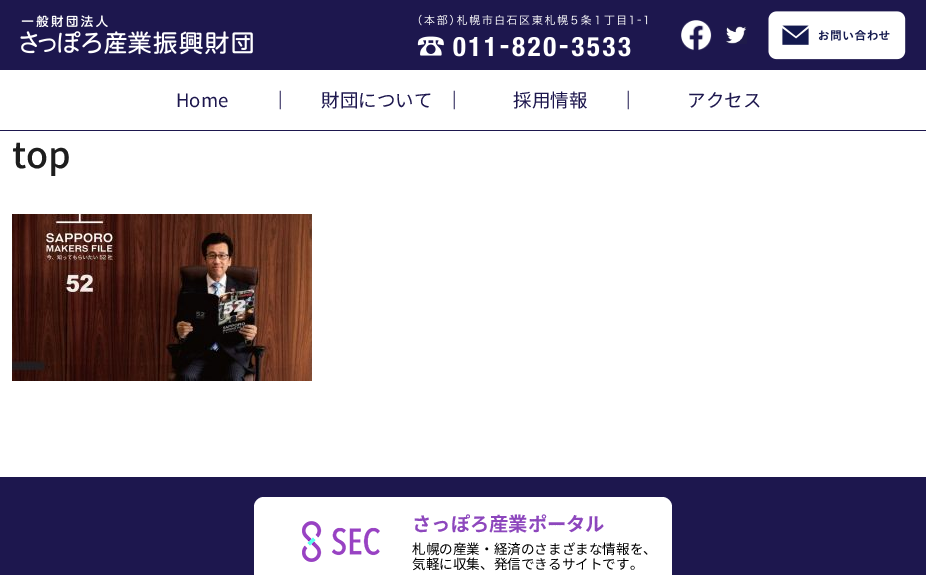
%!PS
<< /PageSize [926 575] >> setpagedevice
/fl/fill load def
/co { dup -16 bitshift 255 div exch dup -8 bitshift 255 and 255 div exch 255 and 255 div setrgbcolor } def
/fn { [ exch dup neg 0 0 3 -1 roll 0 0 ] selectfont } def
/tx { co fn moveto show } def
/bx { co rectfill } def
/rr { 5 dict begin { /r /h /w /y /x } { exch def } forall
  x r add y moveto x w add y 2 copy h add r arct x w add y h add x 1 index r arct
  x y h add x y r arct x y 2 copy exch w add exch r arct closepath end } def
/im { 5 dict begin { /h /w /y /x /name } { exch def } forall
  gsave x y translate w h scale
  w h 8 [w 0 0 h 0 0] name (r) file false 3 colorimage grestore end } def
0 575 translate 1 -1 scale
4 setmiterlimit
0 0 926 575 16#FFFFFF bx
0 0 926 70 16#1D174E bx
(media/1.raw) 20 15 233 40 im
(media/2.raw) 417 14 231 43 im
(media/3.raw) 681 20 31 31 im
(media/4.raw) 726 26 21 18 im
(media/5.raw) 768 11 138 49 im
0 130 926 1 16#1D174E bx
(media/6.raw) 12 214 300 167 im
0 477 926 98 16#1D174E bx
16#FFFFFF co
254 497 418 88 10 rr fl
(media/7.raw) 302 521 78 41 im
(Home) 176 107 /NotoSansJP-Regular 18.5 16#1D174E tx
(｜) 271 107 /NotoSansJP-Regular 18.5 16#1D174E tx
(財団について) 321 107 /NotoSansJP-Regular 18.5 16#1D174E tx
(｜) 445 107 /NotoSansJP-Regular 18.5 16#1D174E tx
(採用情報) 513 107 /NotoSansJP-Regular 18.5 16#1D174E tx
(｜) 619 107 /NotoSansJP-Regular 18.5 16#1D174E tx
(アクセス) 687 107 /NotoSansJP-Regular 18.5 16#1D174E tx
(top) 12 168 /NotoSansJP-Medium 36 16#1D1D1D tx
(さっぽろ産業ポータル) 412 531 /NotoSansJP-Bold 19.25 16#8D47BD tx
(札幌の産業・経済のさまざまな情報を、) 412 554 /NotoSansJP-Regular 13.6 16#000000 tx
(気軽に収集、発信できるサイトです。) 412 569 /NotoSansJP-Regular 13.6 16#000000 tx
showpage
